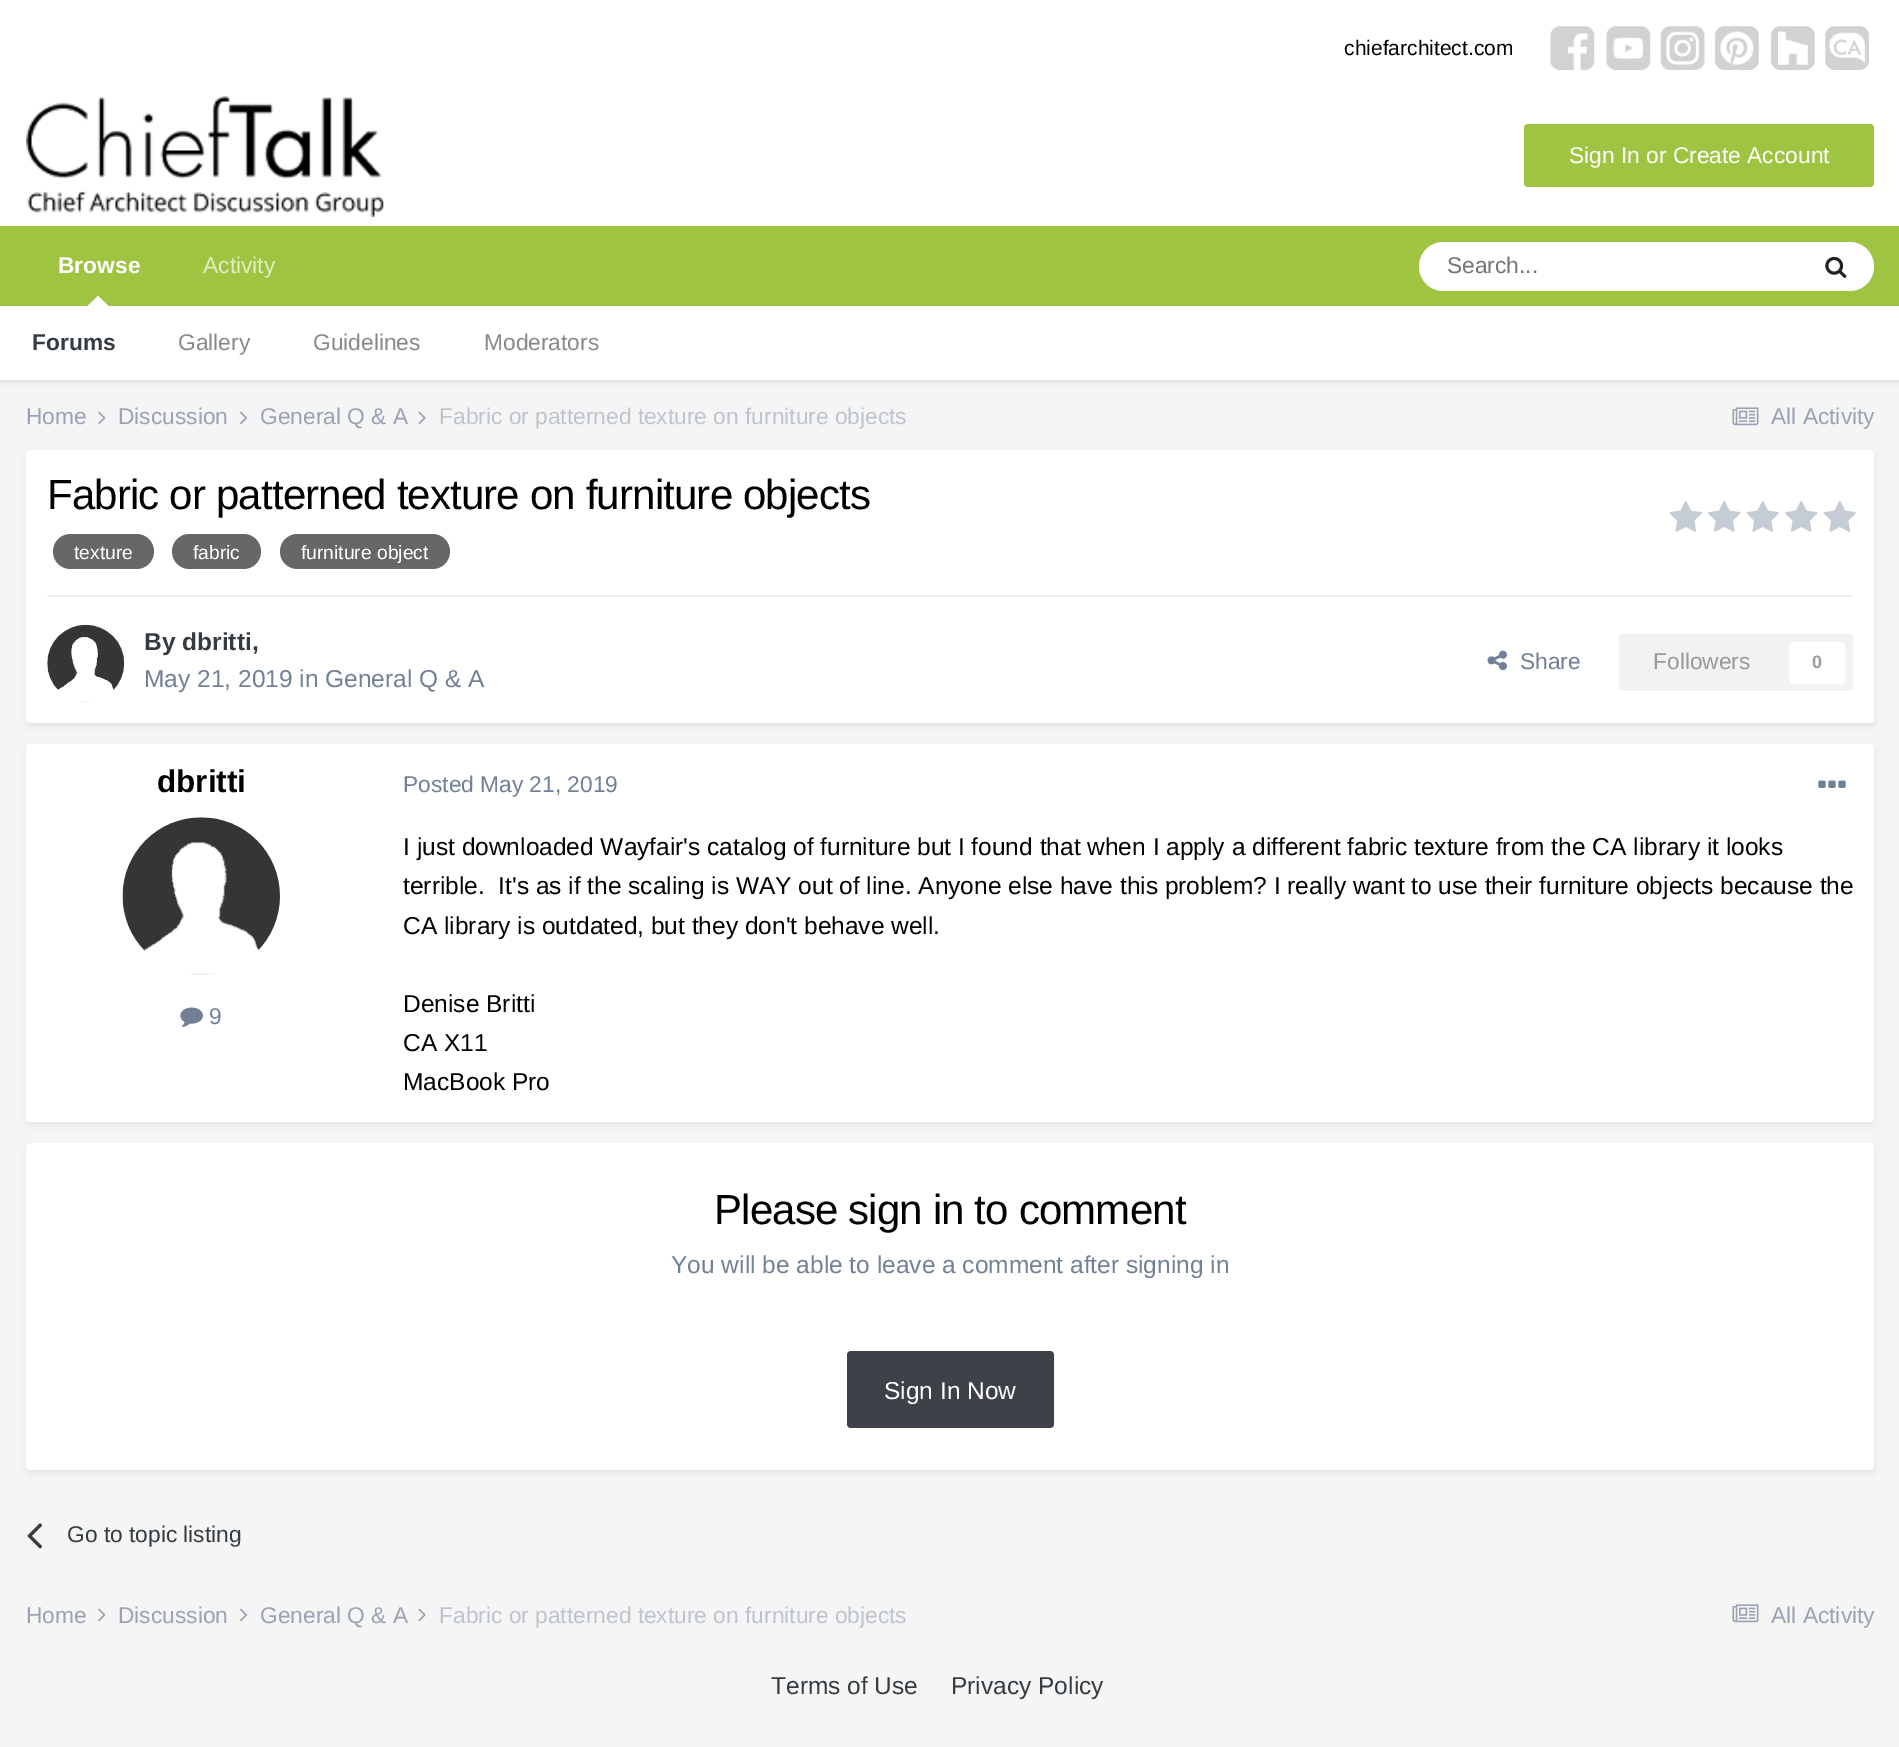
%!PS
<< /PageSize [1899 1747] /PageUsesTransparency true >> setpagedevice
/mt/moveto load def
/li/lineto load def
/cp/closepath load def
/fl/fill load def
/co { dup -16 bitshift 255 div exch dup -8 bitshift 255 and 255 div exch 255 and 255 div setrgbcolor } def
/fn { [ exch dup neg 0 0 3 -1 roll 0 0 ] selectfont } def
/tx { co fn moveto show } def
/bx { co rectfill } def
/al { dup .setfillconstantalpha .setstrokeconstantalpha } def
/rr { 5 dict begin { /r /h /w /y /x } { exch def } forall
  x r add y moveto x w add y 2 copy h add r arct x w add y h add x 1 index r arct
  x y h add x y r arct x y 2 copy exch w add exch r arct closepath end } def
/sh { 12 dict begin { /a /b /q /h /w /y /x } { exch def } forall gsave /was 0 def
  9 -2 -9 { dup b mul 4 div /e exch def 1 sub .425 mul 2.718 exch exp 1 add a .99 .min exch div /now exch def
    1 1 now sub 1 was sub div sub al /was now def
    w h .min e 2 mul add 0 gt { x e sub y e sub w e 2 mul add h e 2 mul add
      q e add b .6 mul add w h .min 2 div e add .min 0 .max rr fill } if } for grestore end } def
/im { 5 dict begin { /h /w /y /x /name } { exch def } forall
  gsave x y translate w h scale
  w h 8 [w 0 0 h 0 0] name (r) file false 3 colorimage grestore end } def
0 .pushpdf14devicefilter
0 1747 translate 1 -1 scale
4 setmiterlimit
0 0 1899 1747 16#F5F5F5 bx
0 0 1899 226 16#FFFFFF bx
(media/1.raw) 1550 26 45 44 im
(media/2.raw) 1606 26 45 44 im
(media/3.raw) 1660 26 45 44 im
(media/4.raw) 1715 26 44 44 im
(media/5.raw) 1771 26 44 44 im
(media/6.raw) 1825 26 44 44 im
(media/7.raw) 26 96 358 121 im
16#9EC442 co
1524 124 350 63 4 rr fl
16#000000 co
0 308 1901 74 0 2 .1 sh
0 226 1899 80 16#9EC442 bx
16#FFFFFF co
108.5 306 mt 87.5 306 li 98 296 li cp fl
1419 242 455 49 24.5 rr fl
(media/8.raw) 1825 256 22 22 im
0 306 1899 74 16#FFFFFF bx
(media/9.raw) 98 411 8 14 im
(media/10.raw) 240 411 8 14 im
(media/11.raw) 418 411 8 14 im
(media/12.raw) 1732 407 27 19 im
16#222222 co
28 455 1845 270 2 3.5 .1 sh
16#FFFFFF co
26 450 1848 273 4 rr fl
16#676767 co
53 534 101 35 17.5 rr fl
172 534 89 35 17.5 rr fl
280 534 170 35 17.5 rr fl
(media/13.raw) 1669 501 33 31 im
(media/14.raw) 1708 501 33 31 im
(media/13.raw) 1746 501 33 31 im
(media/14.raw) 1785 501 33 31 im
(media/13.raw) 1823 501 33 31 im
47 595 1806 2 16#EFEFF0 bx
(media/15.raw) 47 624 78 78 im
(media/16.raw) 1487 650 20 21 im
16#F2F2F2 co
1619 634 234 57 4 rr fl
16#FFFFFF co
1789 642 56 42 4 rr fl
16#222222 co
28 749 1845 375 2 3.5 .1 sh
16#FFFFFF co
26 744 1848 378 4 rr fl
(media/17.raw) 122 817 158 158 im
(media/18.raw) 180 1007 23 20 im
(media/19.raw) 1818 780 28 8 im
16#222222 co
28 1148 1845 324 2 3.5 .1 sh
16#FFFFFF co
26 1143 1848 327 4 rr fl
16#3E4148 co
847 1351 207 77 4 rr fl
(media/20.raw) 27 1523 16 26 im
(media/9.raw) 98 1608 8 14 im
(media/10.raw) 240 1608 8 14 im
(media/11.raw) 418 1608 8 14 im
(media/12.raw) 1732 1604 27 19 im
(chiefarchitect.com) 1344 55 /LiberationSans-Regular 21 16#000000 tx
(Sign In or Create Account) 1569 163 /LiberationSans-Regular 22.75 16#FFFFFF tx
(Activity) 203 273 /LiberationSans-Regular 22.75 16#E2EDC6 tx
(Browse) 58 273 /LiberationSans-Bold 22.75 16#FFFFFF tx
(Forums) 32 350 /LiberationSans-Bold 22.75 16#353C41 tx
(Gallery) 178 350 /LiberationSans-Regular 22.75 16#868A8D tx
(Guidelines) 313 350 /LiberationSans-Regular 22.75 16#868A8D tx
(Moderators) 484 350 /LiberationSans-Regular 22.75 16#868A8D tx
(Search...) 1447 273 /LiberationSans-Regular 22.75 16#757575 tx
(Home) 26 424 /LiberationSans-Regular 22.75 16#99A3B3 tx
(Discussion) 118 424 /LiberationSans-Regular 22.75 16#99A3B3 tx
(General Q & A) 260 424 /LiberationSans-Regular 22.75 16#99A3B3 tx
(Fabric or patterned texture on furniture objects) 439 424 /LiberationSans-Regular 22.75 16#BEC4CD tx
(All Activity) 1771 424 /LiberationSans-Regular 22.75 16#99A3B3 tx
/LiberationSans-Regular 42 fn
16#000000 co
47 509 mt -.85 0 (Fabric or patterned texture on furniture objects) ashow
(texture) 74 559 /LiberationSans-Regular 19.25 16#FFFFFF tx
(fabric) 193 559 /LiberationSans-Regular 19.25 16#FFFFFF tx
(furniture object) 301 559 /LiberationSans-Regular 19.25 16#FFFFFF tx
(By dbritti,) 144 650 /LiberationSans-Bold 24.5 16#353C41 tx
(May 21, 2019 in General Q & A) 144 687 /LiberationSans-Regular 24.5 16#718096 tx
(Share) 1520 669 /LiberationSans-Regular 22.75 16#718096 tx
(Followers) 1653 669 /LiberationSans-Regular 22.75 16#999999 tx
(0) 1812 668 /LiberationSans-Bold 18 16#9A9EA0 tx
(dbritti) 157 792 /LiberationSans-Bold 31.5 16#000000 tx
(9) 209 1024 /LiberationSans-Regular 22.75 16#718096 tx
(Posted May 21, 2019) 403 792 /LiberationSans-Regular 22.75 16#718096 tx
(I just downloaded Wayfair's catalog of furniture but I found that when I apply a different fabric texture from the CA library it looks) 403 855 /LiberationSans-Regular 24.5 16#000000 tx
(terrible.  It's as if the scaling is WAY out of line. Anyone else have this problem? I really want to use their furniture objects because the) 403 894 /LiberationSans-Regular 24.5 16#000000 tx
(CA library is outdated, but they don't behave well.) 403 934 /LiberationSans-Regular 24.5 16#000000 tx
(Denise Britti) 403 1012 /LiberationSans-Regular 24.5 16#000000 tx
(CA X11) 403 1051 /LiberationSans-Regular 24.5 16#000000 tx
(MacBook Pro) 403 1090 /LiberationSans-Regular 24.5 16#000000 tx
/LiberationSans-Regular 42 fn
714 1224 mt -.85 0 (Please sign in to comment) ashow
(You will be able to leave a comment after signing in) 671 1273 /LiberationSans-Regular 24.5 16#718096 tx
(Sign In Now) 884 1399 /LiberationSans-Regular 24.5 16#FFFFFF tx
(Go to topic listing) 67 1542 /LiberationSans-Regular 22.75 16#353C41 tx
(Home) 26 1623 /LiberationSans-Regular 22.75 16#99A3B3 tx
(Discussion) 118 1623 /LiberationSans-Regular 22.75 16#99A3B3 tx
(General Q & A) 260 1623 /LiberationSans-Regular 22.75 16#99A3B3 tx
(Fabric or patterned texture on furniture objects) 439 1623 /LiberationSans-Regular 22.75 16#BEC4CD tx
(All Activity) 1771 1623 /LiberationSans-Regular 22.75 16#99A3B3 tx
(Terms of Use) 771 1694 /LiberationSans-Regular 24.5 16#353C41 tx
(Privacy Policy) 951 1694 /LiberationSans-Regular 24.5 16#353C41 tx
.poppdf14devicefilter showpage
